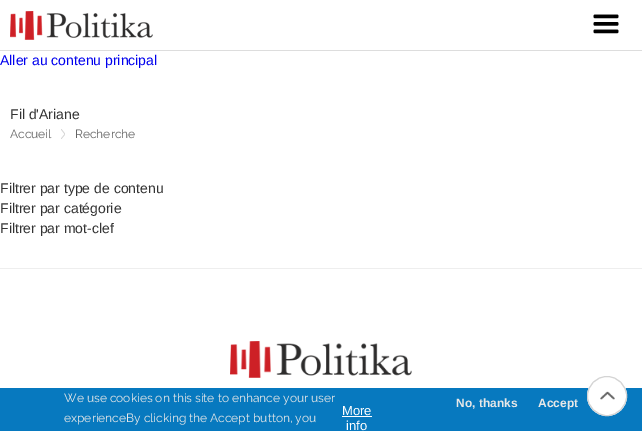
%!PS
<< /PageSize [642 431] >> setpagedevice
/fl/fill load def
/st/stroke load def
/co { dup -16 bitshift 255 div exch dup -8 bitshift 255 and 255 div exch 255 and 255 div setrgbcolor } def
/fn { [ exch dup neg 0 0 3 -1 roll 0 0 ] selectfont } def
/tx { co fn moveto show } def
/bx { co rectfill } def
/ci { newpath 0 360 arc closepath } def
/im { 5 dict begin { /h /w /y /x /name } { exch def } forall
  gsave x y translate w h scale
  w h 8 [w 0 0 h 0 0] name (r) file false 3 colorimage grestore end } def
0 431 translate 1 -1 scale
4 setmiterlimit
0 0 642 431 16#FFFFFF bx
0 50 642 1 16#DDDDDD bx
(media/1.raw) 10 11 143 29 im
(media/2.raw) 593 14 26 20 im
(media/3.raw) 61 129 4 10 im
0 268 642 1 16#EEEEEE bx
(media/4.raw) 230 341 182 37 im
0 388 642 43 16#0779BF bx
16#FFFFFF co
607 396 20 ci fl
(media/5.raw) 600 391 15 9 im
16#D4D4D4 co
607 396 19.5 ci st
342 416 30 1 16#FFFFFF bx
(Aller au contenu principal) 0 65 /LiberationSans-Regular 14 16#0000EE tx
(Fil d'Ariane) 10 119 /LiberationSans-Regular 14 16#333333 tx
(Accueil) 10 138 /Raleway-Regular 12 16#646464 tx
(Recherche) 75 138 /Raleway-Regular 12 16#646464 tx
(Filtrer par type de contenu) 0 193 /LiberationSans-Regular 14 16#333333 tx
(Filtrer par catégorie) 0 213 /LiberationSans-Regular 14 16#333333 tx
(Filtrer par mot-clef) 0 233 /LiberationSans-Regular 14 16#333333 tx
(We use cookies on this site to enhance your user) 64 402 /Raleway-Regular 12 16#E8E8E8 tx
(experienceBy clicking the Accept button, you) 64 422 /Raleway-Regular 12 16#E8E8E8 tx
(More) 342 415 /LiberationSans-Regular 13 16#FFFFFF tx
(info) 346 430 /LiberationSans-Regular 13 16#FFFFFF tx
(No, thanks) 456 407 /LiberationSans-Bold 12 16#E8E8E8 tx
(Accept) 538 407 /LiberationSans-Bold 12 16#E8E8E8 tx
showpage
